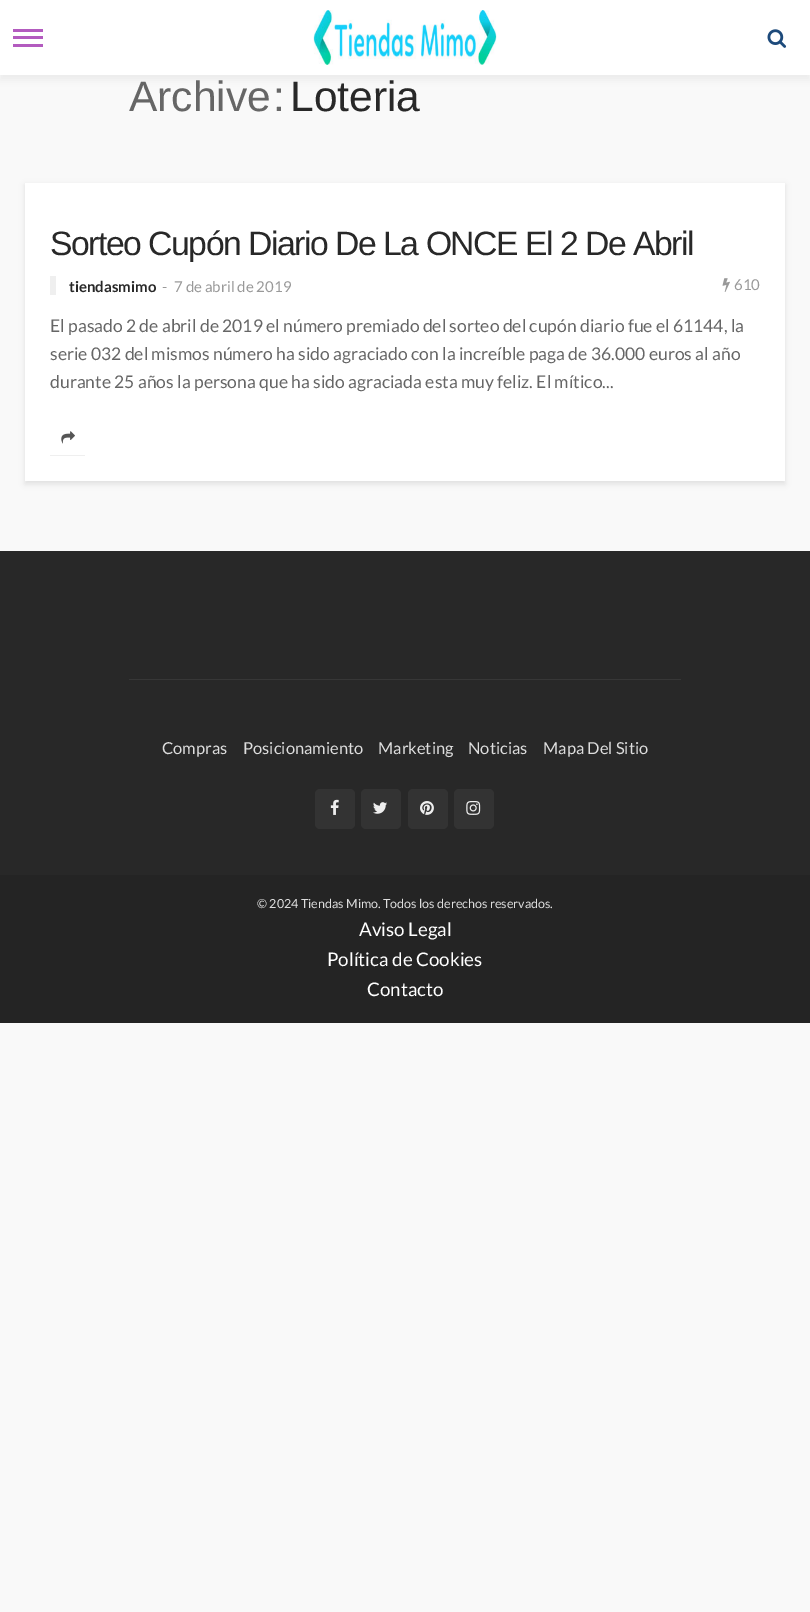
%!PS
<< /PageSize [810 1612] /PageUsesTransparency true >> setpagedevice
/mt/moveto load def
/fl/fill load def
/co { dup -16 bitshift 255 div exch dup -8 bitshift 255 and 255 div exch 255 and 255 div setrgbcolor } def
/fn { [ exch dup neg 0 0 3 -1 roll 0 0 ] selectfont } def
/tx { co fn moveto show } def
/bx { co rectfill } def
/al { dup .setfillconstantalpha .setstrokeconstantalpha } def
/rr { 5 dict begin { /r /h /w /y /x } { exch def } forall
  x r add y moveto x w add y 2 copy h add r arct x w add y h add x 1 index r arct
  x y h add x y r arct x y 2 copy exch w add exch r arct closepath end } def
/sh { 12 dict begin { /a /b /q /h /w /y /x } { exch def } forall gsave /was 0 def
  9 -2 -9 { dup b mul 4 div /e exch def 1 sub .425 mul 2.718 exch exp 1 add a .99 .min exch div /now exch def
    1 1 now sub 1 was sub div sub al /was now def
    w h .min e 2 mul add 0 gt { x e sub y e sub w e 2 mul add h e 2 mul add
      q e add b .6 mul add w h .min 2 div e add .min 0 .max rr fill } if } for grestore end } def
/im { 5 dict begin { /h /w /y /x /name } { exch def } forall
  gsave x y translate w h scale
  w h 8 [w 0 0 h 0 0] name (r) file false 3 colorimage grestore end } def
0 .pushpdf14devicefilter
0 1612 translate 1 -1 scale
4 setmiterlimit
0 0 810 1612 16#F9F9F9 bx
16#1C1C1C co
0 5 810 75 0 4 .05 sh
0 0 810 75 16#FFFFFF bx
13 36 30 3 16#B35BBF bx
13 29 30 3 16#B35BBF bx
13 44 30 3 16#B35BBF bx
(media/1.raw) 313 10 184 55 im
(media/2.raw) 767 29 20 19 im
16#000000 co
25 185 760 299 0 3 .1 sh
25 183 760 298 16#FFFFFF bx
50 276 6 19 16#EFEFEF bx
(media/3.raw) 722 278 8 14 im
50 455 35 1 16#EFEFEF bx
(media/4.raw) 61 431 14 13 im
0 551 810 324 16#282828 bx
129 679 552 1 16#373737 bx
16#333333 co
315 789 40 40 5 rr fl
(media/5.raw) 330 799 9 16 im
361 789 40 40 5 rr fl
(media/6.raw) 373 802 14 12 im
408 789 40 40 5 rr fl
(media/7.raw) 420 801 14 14 im
454 789 40 40 5 rr fl
(media/8.raw) 466 801 15 14 im
0 875 810 148 16#242424 bx
(Archive) 129 111 /LiberationSans-Regular 42.5 16#666666 tx
(:) 273 111 /LiberationSans-Regular 42.5 16#666666 tx
(Loteria) 290 111 /LiberationSans-Regular 42.5 16#282828 tx
/LiberationSans-Regular 33.75 fn
50 255 mt -1.5 0 (Sorteo Cupón Diario De La ONCE El 2 De Abril) ashow
(tiendasmimo) 69 292 /Lato-Bold 15 16#282828 tx
(-) 162 292 /Lato-Regular 15 16#999999 tx
(7 de abril de 2019) 174 292 /Lato-Regular 15 16#999999 tx
(610) 734 290 /Lato-Regular 15 16#999999 tx
(El pasado 2 de abril de 2019 el número premiado del sorteo del cupón diario fue el 61144, la) 50 332 /Lato-Regular 17.5 16#666666 tx
(serie 032 del mismos número ha sido agraciado con la increíble paga de 36.000 euros al año) 50 360 /Lato-Regular 17.5 16#666666 tx
(durante 25 años la persona que ha sido agraciada esta muy feliz. El mítico...) 50 388 /Lato-Regular 17.5 16#666666 tx
(Compras) 162 754 /Lato-Regular 16.5 16#DDDDDD tx
(Posicionamiento) 243 754 /Lato-Regular 16.5 16#DDDDDD tx
(Marketing) 378 754 /Lato-Regular 16.5 16#DDDDDD tx
(Noticias) 468 754 /Lato-Regular 16.5 16#DDDDDD tx
(Mapa Del Sitio) 543 754 /Lato-Regular 16.5 16#DDDDDD tx
(© 2024 Tiendas Mimo. Todos los derechos reservados.) 257 908 /Lato-Regular 12.5 16#DDDDDD tx
(Aviso Legal) 359 936 /Lato-Regular 18.75 16#FFFFFF tx
(Política de Cookies) 327 966 /Lato-Regular 18.75 16#FFFFFF tx
(Contacto) 367 996 /Lato-Regular 18.75 16#FFFFFF tx
.poppdf14devicefilter showpage
